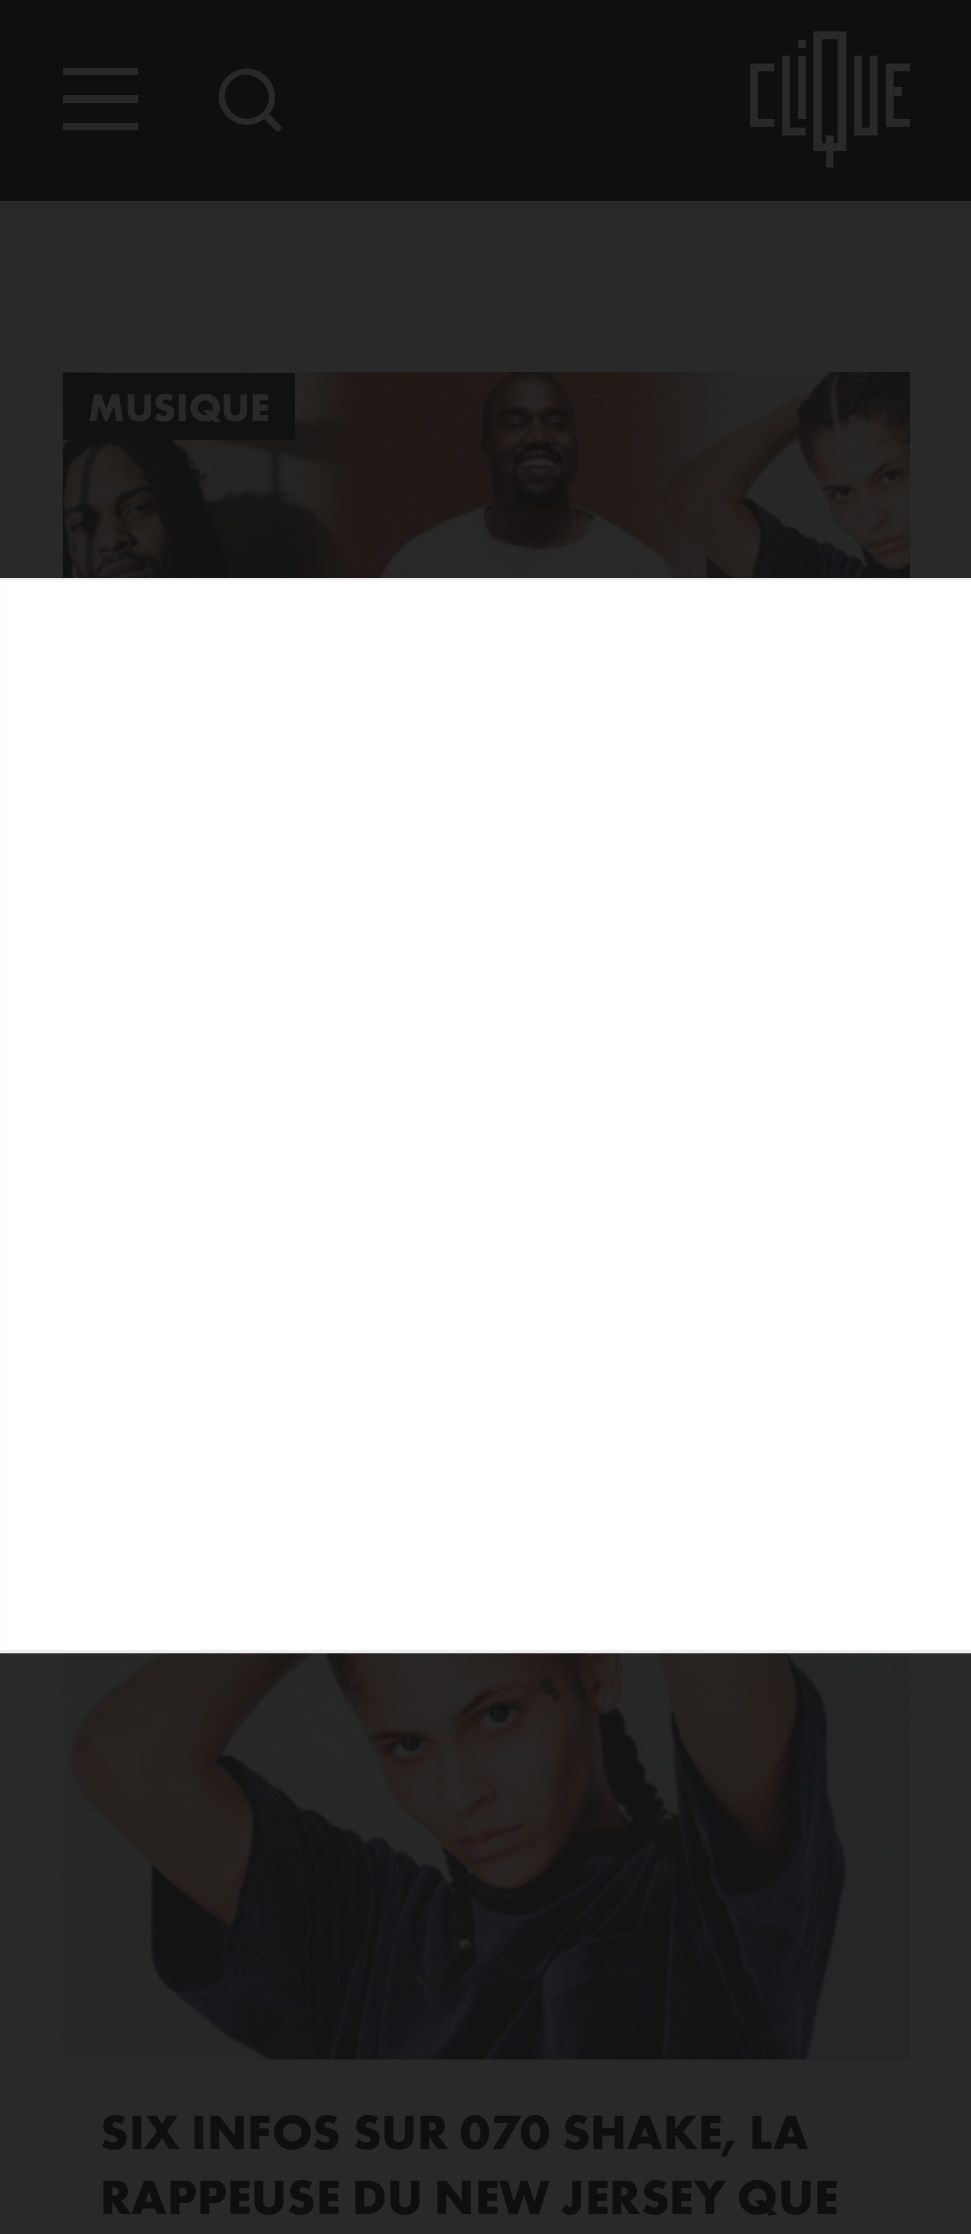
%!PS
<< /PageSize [971 2234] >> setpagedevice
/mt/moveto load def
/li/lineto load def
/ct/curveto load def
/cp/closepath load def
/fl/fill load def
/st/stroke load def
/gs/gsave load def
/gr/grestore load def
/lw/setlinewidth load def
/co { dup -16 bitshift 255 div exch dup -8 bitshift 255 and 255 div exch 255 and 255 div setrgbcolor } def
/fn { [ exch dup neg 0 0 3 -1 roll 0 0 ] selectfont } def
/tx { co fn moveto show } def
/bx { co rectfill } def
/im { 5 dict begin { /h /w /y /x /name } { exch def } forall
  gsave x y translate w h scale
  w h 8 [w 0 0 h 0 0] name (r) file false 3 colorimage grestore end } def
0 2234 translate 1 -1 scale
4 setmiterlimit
0 0 971 2234 16#292929 bx
0 0 971 201 16#0F0F0F bx
63 123 75 7 16#292929 bx
63 95 75 8 16#292929 bx
63 68 75 7 16#292929 bx
269 114 mt 282 128 li 278 132 li 264 119 li 242 136 210 113 221 86 ct 224 79 229 74 236 71 ct 245 67 255 68 263 74 ct 276 83 279 102 269 114 ct cp 263 112 mt 282 92 252 61 231 81 ct 211 102 242 133 263 112 ct cp fl
(media/1.raw) 750 31 160 137 im
(media/2.raw) 62 372 848 206 im
63 373 232 67 16#111111 bx
(media/3.raw) 62 1653 848 407 im
16#FFFFFF co
-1.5 579.5 mt 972.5 579.5 li 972.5 1651.5 li -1.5 1651.5 li cp gs fl gr
16#EEEEEE co
3 lw
st
0 580 971 1 16#FFFFFF bx
(MUSIQUE) 88 421 /FuturaPT-Bold 40 16#292929 tx
(SIX INFOS SUR 070 SHAKE, LA) 100 2149 /FuturaPT-Bold 50 16#0F0F0F tx
(RAPPEUSE DU NEW JERSEY QUE) 100 2214 /FuturaPT-Bold 50 16#0F0F0F tx
showpage
